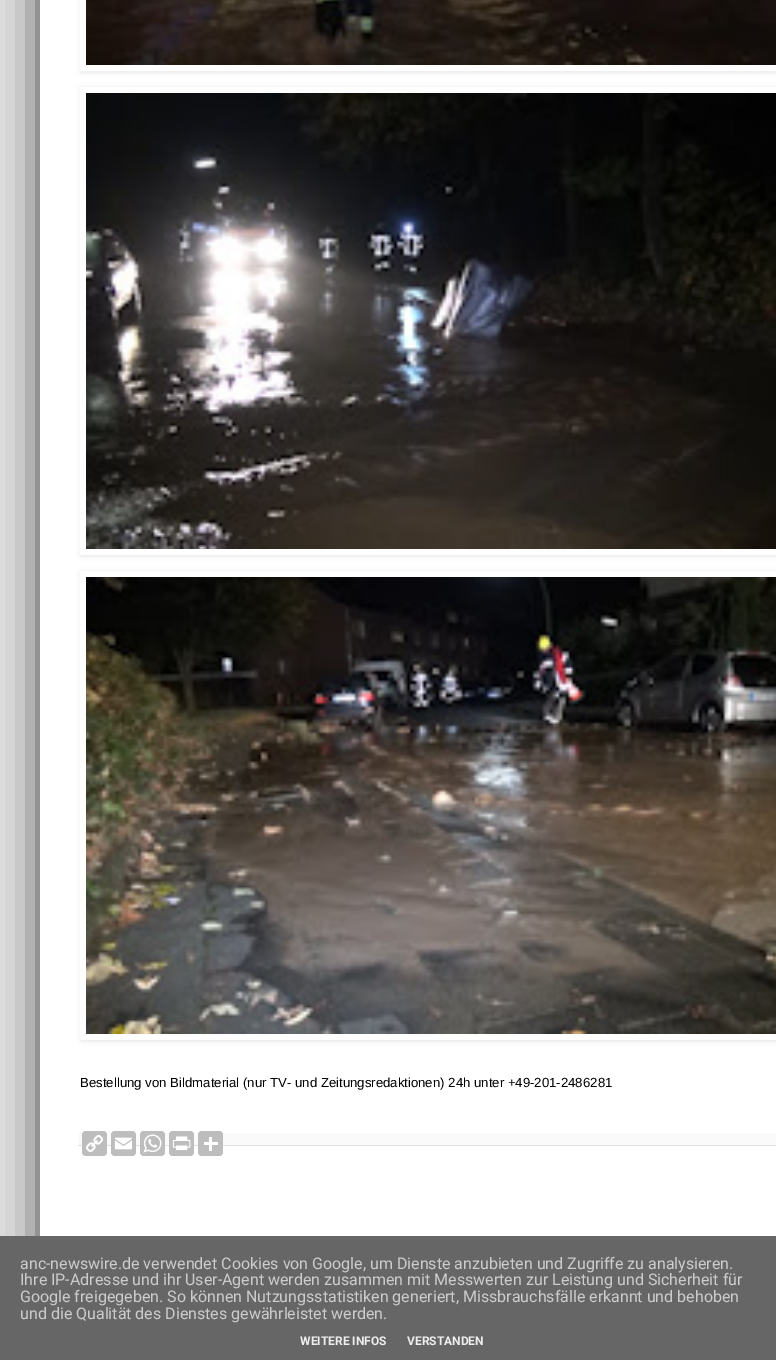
%!PS
<< /PageSize [776 1360] /PageUsesTransparency true >> setpagedevice
/mt/moveto load def
/li/lineto load def
/cp/closepath load def
/fl/fill load def
/gs/gsave load def
/gr/grestore load def
/co { dup -16 bitshift 255 div exch dup -8 bitshift 255 and 255 div exch 255 and 255 div setrgbcolor } def
/fn { [ exch dup neg 0 0 3 -1 roll 0 0 ] selectfont } def
/tx { co fn moveto show } def
/bx { co rectfill } def
/al { dup .setfillconstantalpha .setstrokeconstantalpha } def
/rr { 5 dict begin { /r /h /w /y /x } { exch def } forall
  x r add y moveto x w add y 2 copy h add r arct x w add y h add x 1 index r arct
  x y h add x y r arct x y 2 copy exch w add exch r arct closepath end } def
/sh { 12 dict begin { /a /b /q /h /w /y /x } { exch def } forall gsave /was 0 def
  9 -2 -9 { dup b mul 4 div /e exch def 1 sub .425 mul 2.718 exch exp 1 add a .99 .min exch div /now exch def
    1 1 now sub 1 was sub div sub al /was now def
    w h .min e 2 mul add 0 gt { x e sub y e sub w e 2 mul add h e 2 mul add
      q e add b .6 mul add w h .min 2 div e add .min 0 .max rr fill } if } for grestore end } def
/im { 5 dict begin { /h /w /y /x /name } { exch def } forall
  gsave x y translate w h scale
  w h 8 [w 0 0 h 0 0] name (r) file false 3 colorimage grestore end } def
0 .pushpdf14devicefilter
0 1360 translate 1 -1 scale
4 setmiterlimit
0 0 776 1360 16#E0E0E0 bx
16#000000 co
40 -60 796 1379 0 20 .7 sh
40 0 736 1236 16#FFFFFF bx
gs
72 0 mt 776 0 li 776 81 li 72 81 li cp 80 -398 mt 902 -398 li 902 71 li 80 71 li cp eoclip newpath
16#000000 co
81 -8 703 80 0 2.5 .1 sh
gr
(media/1.raw) 86 0 690 65 im
gs
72 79 mt 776 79 li 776 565 li 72 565 li cp 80 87 mt 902 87 li 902 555 li 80 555 li cp eoclip newpath
16#000000 co
81 88 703 468 0 2.5 .1 sh
gr
(media/2.raw) 86 93 690 456 im
gs
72 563 mt 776 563 li 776 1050 li 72 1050 li cp 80 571 mt 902 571 li 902 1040 li 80 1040 li cp eoclip newpath
16#000000 co
81 572 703 469 0 2.5 .1 sh
gr
(media/3.raw) 86 577 690 457 im
78 1133 698 12 16#FAFAFA bx
78 1145 698 1 16#E1E1E1 bx
16#BDBDBD co
82 1131 25 25 4 rr fl
(media/4.raw) 86 1135 17 17 im
111 1131 25 25 4 rr fl
(media/5.raw) 114 1137 19 13 im
140 1131 25 25 4 rr fl
(media/6.raw) 143 1134 19 19 im
169 1131 25 25 4 rr fl
(media/7.raw) 172 1136 19 15 im
198 1131 25 25 4 rr fl
209 1137 3 14 16#FFFFFF bx
204 1142 14 3 16#FFFFFF bx
0 1236 776 124 16#666666 bx
(Bestellung von Bildmaterial \(nur TV- und Zeitungsredaktionen\) 24h unter +49-201-2486281) 80 1087 /LiberationSans-Regular 13.2 16#000000 tx
(anc-newswire.de verwendet Cookies von Google, um Dienste anzubieten und Zugriffe zu analysieren.) 20 1269 /Roboto-Regular 16 16#CCCCCC tx
(Ihre IP-Adresse und ihr User-Agent werden zusammen mit Messwerten zur Leistung und Sicherheit für) 20 1285 /Roboto-Regular 16 16#CCCCCC tx
(Google freigegeben. So können Nutzungsstatistiken generiert, Missbrauchsfälle erkannt und behoben) 20 1302 /Roboto-Regular 16 16#CCCCCC tx
(und die Qualität des Dienstes gewährleistet werden.) 20 1319 /Roboto-Regular 16 16#CCCCCC tx
(WEITERE INFOS) 300 1345 /Roboto-Bold 12 16#EEEEEE tx
(VERSTANDEN) 407 1345 /Roboto-Bold 12 16#EEEEEE tx
.poppdf14devicefilter showpage
